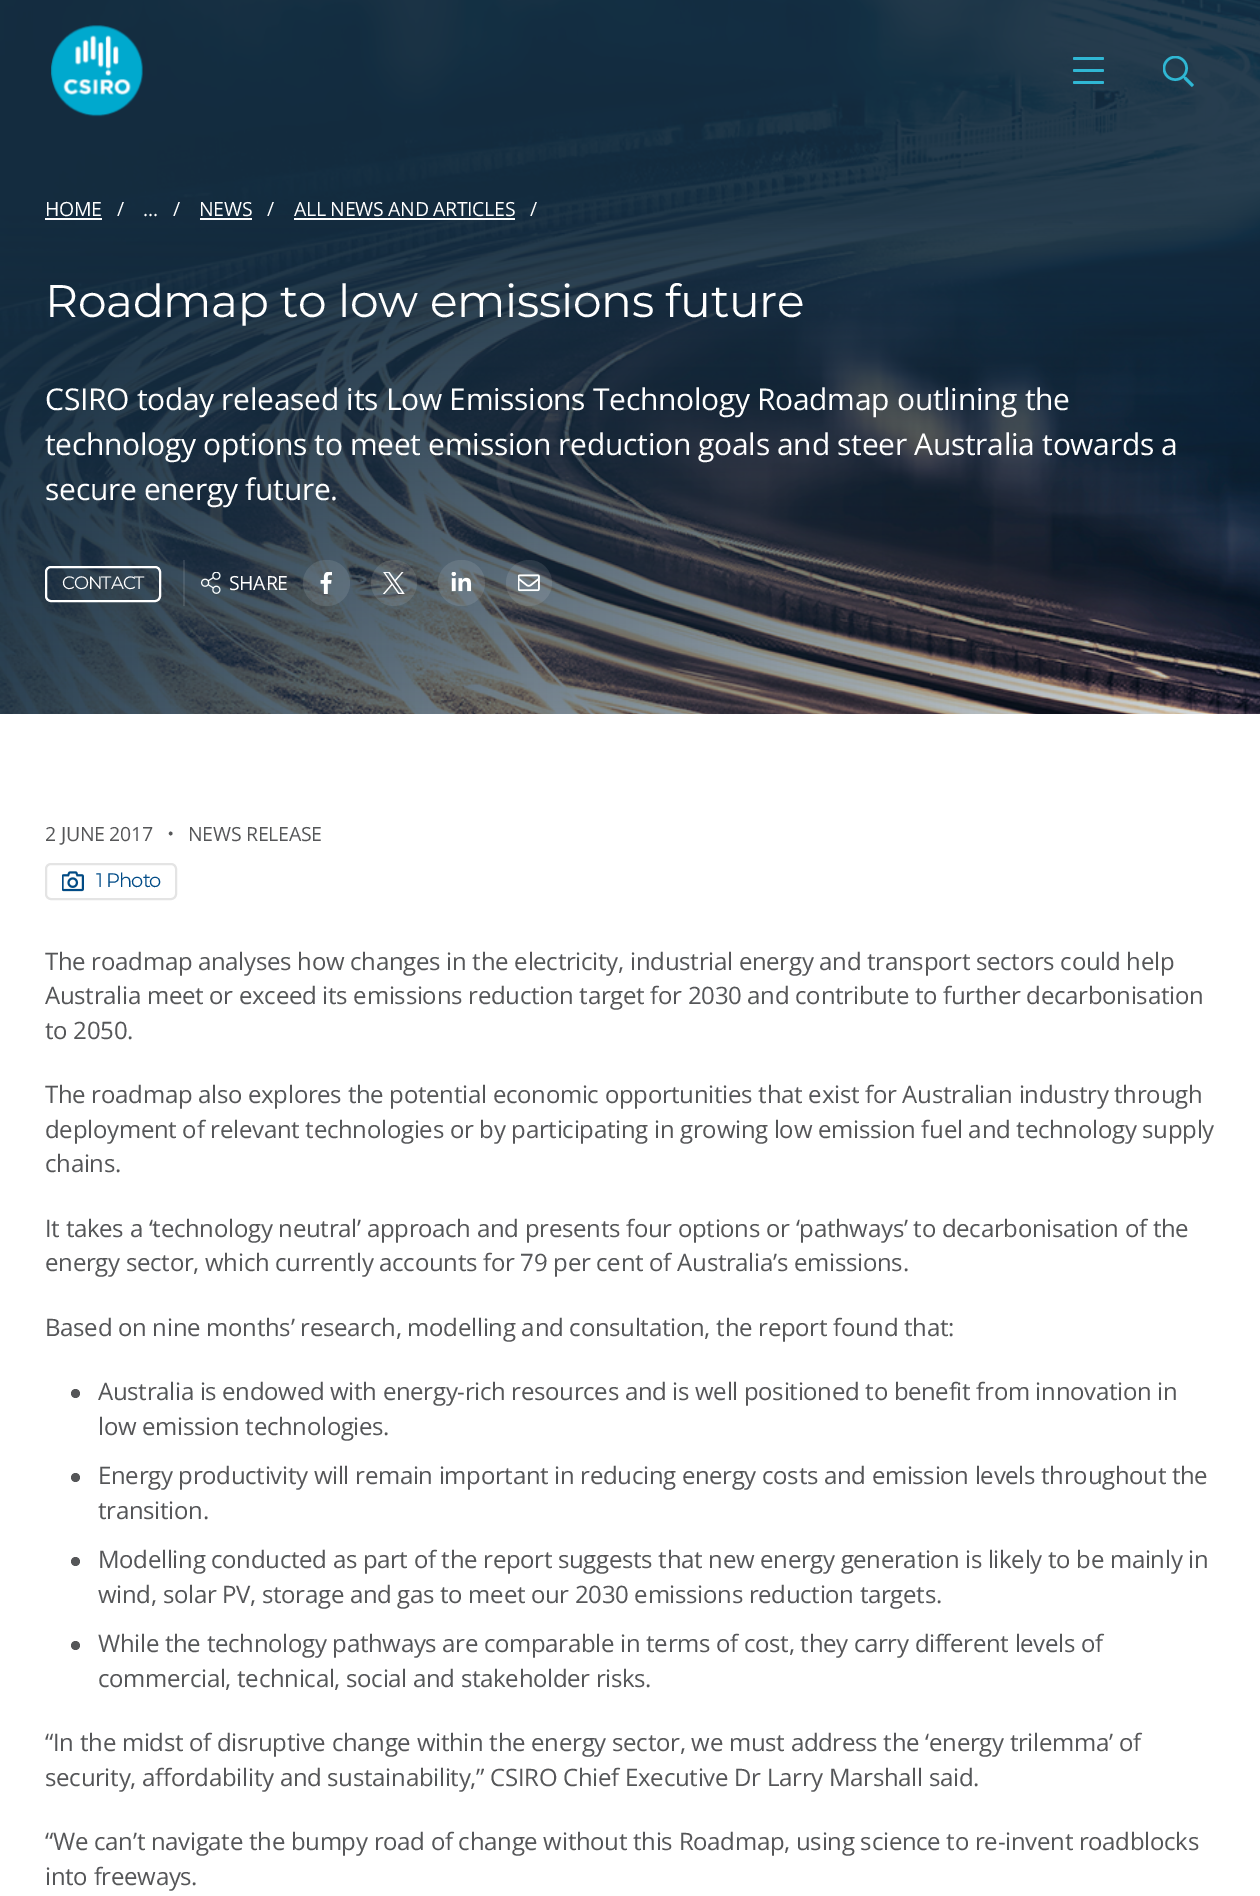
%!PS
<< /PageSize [1260 1896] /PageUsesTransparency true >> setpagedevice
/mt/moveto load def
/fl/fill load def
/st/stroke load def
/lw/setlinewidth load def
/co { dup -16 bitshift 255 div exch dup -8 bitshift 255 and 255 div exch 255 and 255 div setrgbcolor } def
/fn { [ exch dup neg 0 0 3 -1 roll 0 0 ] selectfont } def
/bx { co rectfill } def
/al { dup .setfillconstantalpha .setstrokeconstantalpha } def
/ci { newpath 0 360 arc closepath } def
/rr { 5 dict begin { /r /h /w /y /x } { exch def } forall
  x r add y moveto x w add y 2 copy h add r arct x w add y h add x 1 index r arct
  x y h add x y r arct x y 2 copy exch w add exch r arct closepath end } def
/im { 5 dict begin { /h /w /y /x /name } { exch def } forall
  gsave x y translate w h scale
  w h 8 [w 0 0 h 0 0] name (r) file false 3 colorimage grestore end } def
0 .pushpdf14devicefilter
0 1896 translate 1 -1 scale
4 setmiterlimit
0 0 1260 1896 16#FFFFFF bx
(media/3.raw) 0 0 1260 714 im
(media/1.raw) 51 25 92 92 im
16#30B7D4 co
1073 69 31 3 1.5 rr fl
1073 57 31 3 1.5 rr fl
1073 81 31 3 1.5 rr fl
(media/2.raw) 1163 56 31 31 im
45 218 57 2 16#FFFFFF bx
200 218 52 2 16#FFFFFF bx
294 218 221 2 16#FFFFFF bx
2 lw
46 567 114 34 5 rr st
0.1 al
183 560 2 46 16#FFFFFF bx
1 al
(media/4.raw) 200 572 21 22 im
0.1 al
303 560 47 46 23 rr fl
1 al
(media/5.raw) 320 572 12 22 im
0.1 al
394 583 23 ci fl
1 al
(media/6.raw) 383 572 22 22 im
0.1 al
438 560 47 46 23 rr fl
1 al
(media/7.raw) 451 572 21 20 im
0.1 al
529 583 23 ci fl
1 al
(media/8.raw) 518 574 22 18 im
16#E4E4E4 co
46 864 130 35 5 rr st
(media/9.raw) 62 871 22 21 im
16#555658 co
75.5 1393.5 4.5 ci fl
75.5 1477.5 4.5 ci fl
75.5 1561.5 4.5 ci fl
75.5 1645.5 4.5 ci fl
/OpenSans-Regular 19.5 fn
16#FFFFFF co
45 216 mt -.32 0 (HOME) ashow
117 216 mt -.32 0 (/) ashow
143 216 mt -.32 0 (...) ashow
173 216 mt -.32 0 (/) ashow
199 216 mt -.32 0 (NEWS) ashow
267 216 mt -.32 0 (/) ashow
294 216 mt -.32 0 (ALL NEWS AND ARTICLES) ashow
530 216 mt -.32 0 (/) ashow
/Montserrat-Regular 45.6 fn
45 317 mt -.32 0 (Roadmap to low emissions future) ashow
/OpenSans-Regular 30 fn
45 410 mt -.29 0 (CSIRO today released its Low Emissions Technology Roadmap outlining the) ashow
45 455 mt -.29 0 (technology options to meet emission reduction goals and steer Australia towards a) ashow
45 500 mt -.29 0 (secure energy future.) ashow
/Montserrat-Regular 18 fn
62 589 mt -1 0 (CONTACT) ashow
/OpenSans-Regular 19.5 fn
229 590 mt -.29 0 (SHARE) ashow
16#555658 co
45 841 mt -.29 0 (2 JUNE 2017) ashow
/LiberationSans-Regular 9 fn
168 836 mt -.29 0 (●) ashow
/OpenSans-Regular 19.5 fn
188 841 mt -.29 0 (NEWS RELEASE) ashow
/Montserrat-Regular 19.5 fn
16#004B87 co
96 887 mt -1 0 (1 Photo) ashow
/OpenSans-Regular 24 fn
16#555658 co
45 970 mt -.29 0 (The roadmap analyses how changes in the electricity, industrial energy and transport sectors could help) ashow
45 1004 mt -.29 0 (Australia meet or exceed its emissions reduction target for 2030 and contribute to further decarbonisation) ashow
45 1039 mt -.29 0 (to 2050.) ashow
45 1103 mt -.29 0 (The roadmap also explores the potential economic opportunities that exist for Australian industry through) ashow
45 1138 mt -.29 0 (deployment of relevant technologies or by participating in growing low emission fuel and technology supply) ashow
45 1172 mt -.29 0 (chains.) ashow
45 1237 mt -.29 0 (It takes a ‘technology neutral’ approach and presents four options or ‘pathways’ to decarbonisation of the) ashow
45 1271 mt -.29 0 (energy sector, which currently accounts for 79 per cent of Australia’s emissions.) ashow
45 1336 mt -.29 0 (Based on nine months’ research, modelling and consultation, the report found that:) ashow
98 1400 mt -.32 0 (Australia is endowed with energy-rich resources and is well positioned to benefit from innovation in) ashow
98 1435 mt -.32 0 (low emission technologies.) ashow
98 1484 mt -.32 0 (Energy productivity will remain important in reducing energy costs and emission levels throughout the) ashow
98 1519 mt -.32 0 (transition.) ashow
98 1568 mt -.32 0 (Modelling conducted as part of the report suggests that new energy generation is likely to be mainly in) ashow
98 1603 mt -.32 0 (wind, solar PV, storage and gas to meet our 2030 emissions reduction targets.) ashow
98 1652 mt -.32 0 (While the technology pathways are comparable in terms of cost, they carry different levels of) ashow
98 1687 mt -.32 0 (commercial, technical, social and stakeholder risks.) ashow
45 1751 mt -.29 0 (“In the midst of disruptive change within the energy sector, we must address the ‘energy trilemma’ of) ashow
45 1786 mt -.29 0 (security, affordability and sustainability,” CSIRO Chief Executive Dr Larry Marshall said.) ashow
45 1850 mt -.29 0 (“We can’t navigate the bumpy road of change without this Roadmap, using science to re-invent roadblocks) ashow
45 1885 mt -.29 0 (into freeways.) ashow
.poppdf14devicefilter showpage
